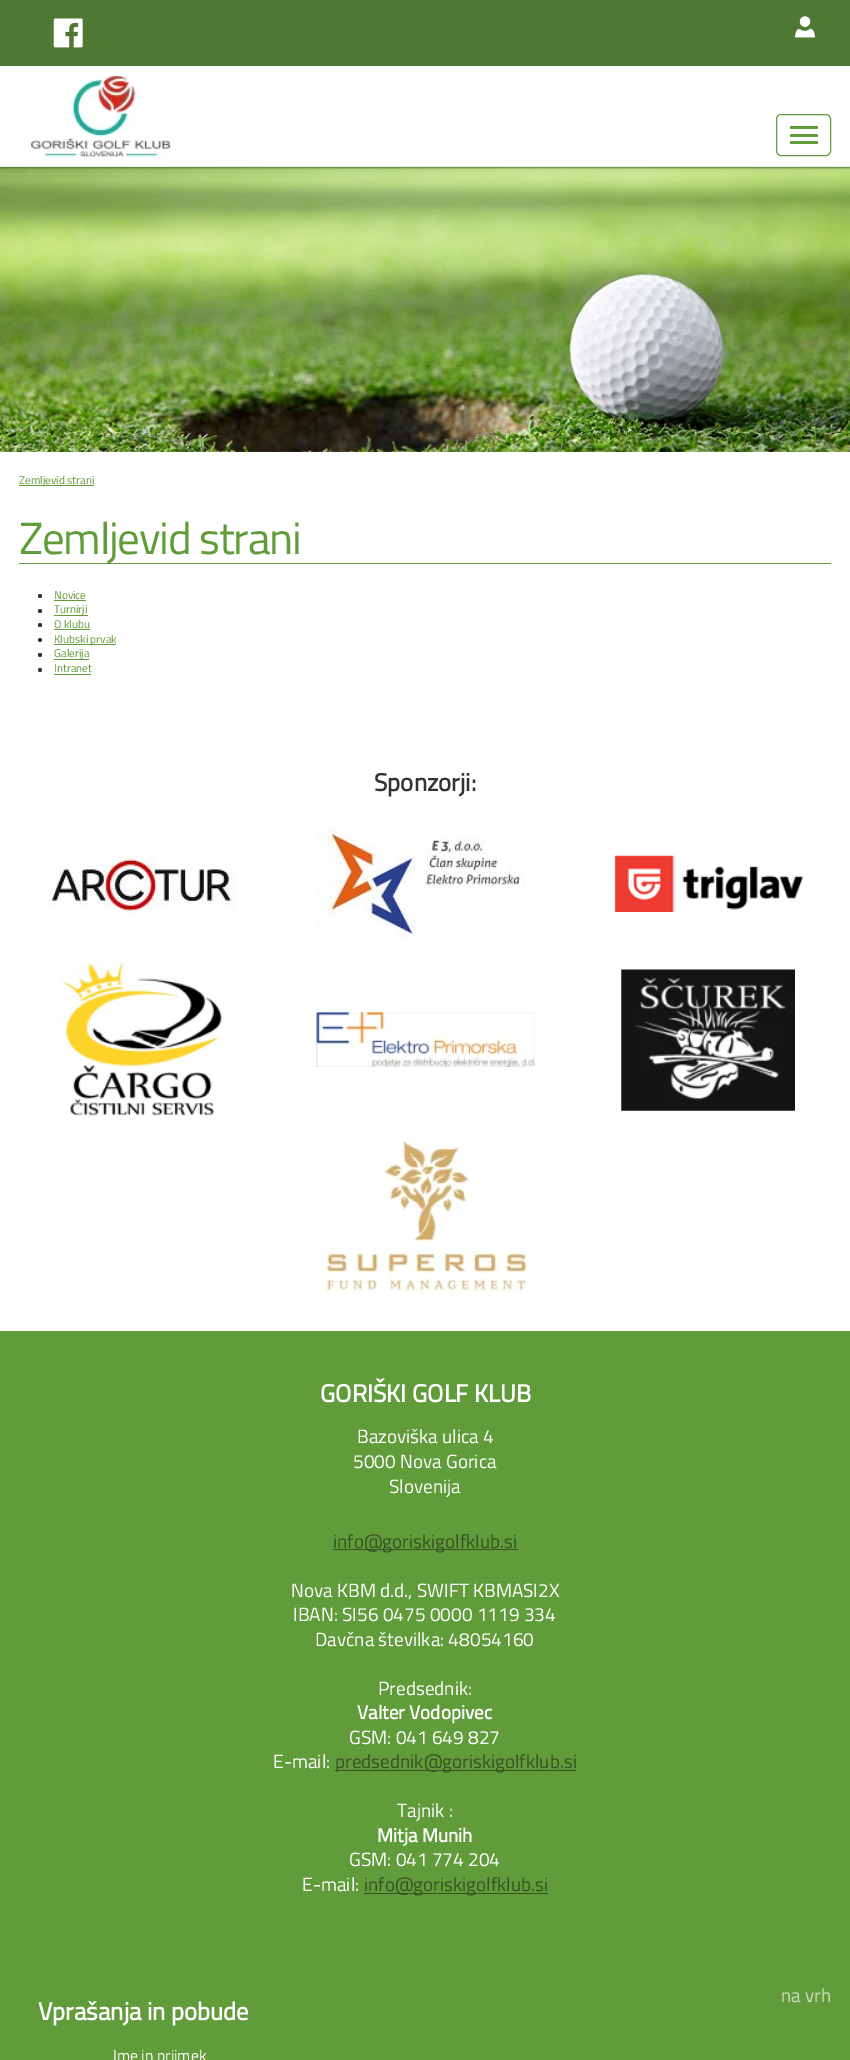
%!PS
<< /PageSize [850 2060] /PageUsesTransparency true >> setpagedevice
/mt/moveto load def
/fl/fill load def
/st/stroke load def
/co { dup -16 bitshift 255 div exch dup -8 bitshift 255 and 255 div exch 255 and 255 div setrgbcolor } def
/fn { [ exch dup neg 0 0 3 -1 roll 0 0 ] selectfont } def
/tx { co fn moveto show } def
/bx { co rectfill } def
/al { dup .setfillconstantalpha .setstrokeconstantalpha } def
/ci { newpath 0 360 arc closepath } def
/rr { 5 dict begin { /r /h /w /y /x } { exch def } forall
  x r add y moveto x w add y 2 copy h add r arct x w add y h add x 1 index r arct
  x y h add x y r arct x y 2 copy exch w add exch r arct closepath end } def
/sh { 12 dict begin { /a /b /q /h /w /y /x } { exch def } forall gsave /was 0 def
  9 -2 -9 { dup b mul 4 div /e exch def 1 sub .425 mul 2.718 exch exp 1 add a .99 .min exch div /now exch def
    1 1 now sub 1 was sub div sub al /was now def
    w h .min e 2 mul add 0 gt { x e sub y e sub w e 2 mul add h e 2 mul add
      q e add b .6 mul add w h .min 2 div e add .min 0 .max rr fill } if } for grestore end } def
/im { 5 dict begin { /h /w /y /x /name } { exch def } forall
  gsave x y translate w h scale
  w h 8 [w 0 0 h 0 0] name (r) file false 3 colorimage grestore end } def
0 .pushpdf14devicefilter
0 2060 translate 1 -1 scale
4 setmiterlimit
0 0 850 2060 16#FFFFFF bx
(media/4.raw) 0 167 850 285 im
16#4E7932 co
0 0 850 168 0 1 1 sh
0 66 850 100 16#FFFFFF bx
0 166 850 1 16#E7E7E7 bx
0 0 850 66 16#4E7932 bx
(media/1.raw) 53 18 30 30 im
(media/2.raw) 795 16 20 22 im
(media/3.raw) 19 75 152 92 im
16#619C3B co
776.5 114.5 54 41 4.5 rr st
790 126 28 3 1.5 rr fl
790 134 28 3 1.5 rr fl
790 141 28 3 1.5 rr fl
19 485 75 1 16#619C3B bx
19 563 812 1 16#619C3B bx
16#333333 co
40 596 2 ci fl
54 600 32 1 16#619C3B bx
16#333333 co
40 611 2 ci fl
54 615 34 1 16#619C3B bx
16#333333 co
40 625 2 ci fl
54 629 36 1 16#619C3B bx
16#333333 co
40 640 2 ci fl
54 644 62 1 16#619C3B bx
16#333333 co
40 655 2 ci fl
54 659 35 1 16#619C3B bx
16#333333 co
40 670 2 ci fl
54 674 37 1 16#619C3B bx
0 1331 850 729 16#619C3B bx
(media/5.raw) 48 849 188 68 im
(media/6.raw) 316 825 210 117 im
(media/7.raw) 615 855 188 57 im
(media/8.raw) 62 961 160 155 im
(media/9.raw) 316 1012 219 55 im
(media/10.raw) 621 969 174 142 im
(media/11.raw) 325 1139 203 154 im
333 1549 185 1 16#345320 bx
335 1770 241 1 16#345320 bx
364 1893 184 1 16#345320 bx
(Zemljevid strani) 19 484 /TitilliumWeb-Regular 11.25 16#619C3B tx
/TitilliumWeb-Regular 45 fn
19 554 mt -1.25 0 (Zemljevid strani) ashow
(Novice) 54 599 /TitilliumWeb-Regular 11.25 16#619C3B tx
(Turnirji) 54 613 /TitilliumWeb-Regular 11.25 16#619C3B tx
(O klubu) 54 628 /TitilliumWeb-Regular 11.25 16#619C3B tx
(Klubski prvak) 54 643 /TitilliumWeb-Regular 11.25 16#619C3B tx
(Galerija) 54 657 /TitilliumWeb-Regular 11.25 16#619C3B tx
(Intranet) 54 672 /TitilliumWeb-Regular 11.25 16#619C3B tx
(na vrh) 781 2002 /TitilliumWeb-Regular 19.1 16#CDDFC1 tx
(Sponzorji:) 374 791 /TitilliumWeb-Bold 24.75 16#333333 tx
(GORIŠKI GOLF KLUB) 320 1402 /TitilliumWeb-Bold 24.75 16#FFFFFF tx
(Bazoviška ulica 4) 357 1443 /TitilliumWeb-Regular 19.1 16#FFFFFF tx
(5000 Nova Gorica) 353 1468 /TitilliumWeb-Regular 19.1 16#FFFFFF tx
(Slovenija) 389 1493 /TitilliumWeb-Regular 19.1 16#FFFFFF tx
(info@goriskigolfklub.si) 333 1548 /TitilliumWeb-Regular 19.1 16#345320 tx
(Nova KBM d.d., SWIFT KBMASI2X) 291 1597 /TitilliumWeb-Regular 19.1 16#FFFFFF tx
(IBAN: SI56 0475 0000 1119 334) 293 1621 /TitilliumWeb-Regular 19.1 16#FFFFFF tx
(Davčna številka: 48054160) 315 1646 /TitilliumWeb-Regular 19.1 16#FFFFFF tx
(Predsednik:) 378 1695 /TitilliumWeb-Regular 19.1 16#FFFFFF tx
(Valter Vodopivec) 357 1719 /TitilliumWeb-Bold 19.1 16#FFFFFF tx
(GSM: 041 649 827) 349 1744 /TitilliumWeb-Regular 19.1 16#FFFFFF tx
(E-mail:) 273 1768 /TitilliumWeb-Regular 19.1 16#FFFFFF tx
(predsednik@goriskigolfklub.si) 335 1768 /TitilliumWeb-Regular 19.1 16#345320 tx
(Tajnik :) 397 1817 /TitilliumWeb-Regular 19.1 16#FFFFFF tx
(Mitja Munih) 377 1842 /TitilliumWeb-Bold 19.1 16#FFFFFF tx
(GSM: 041 774 204) 349 1866 /TitilliumWeb-Regular 19.1 16#FFFFFF tx
(E-mail:) 302 1891 /TitilliumWeb-Regular 19.1 16#FFFFFF tx
(info@goriskigolfklub.si) 364 1891 /TitilliumWeb-Regular 19.1 16#345320 tx
(Vprašanja in pobude) 38 2020 /TitilliumWeb-Bold 24.75 16#FFFFFF tx
(Ime in priimek) 113 2061 /TitilliumWeb-Regular 15.75 16#FFFFFF tx
.poppdf14devicefilter showpage
